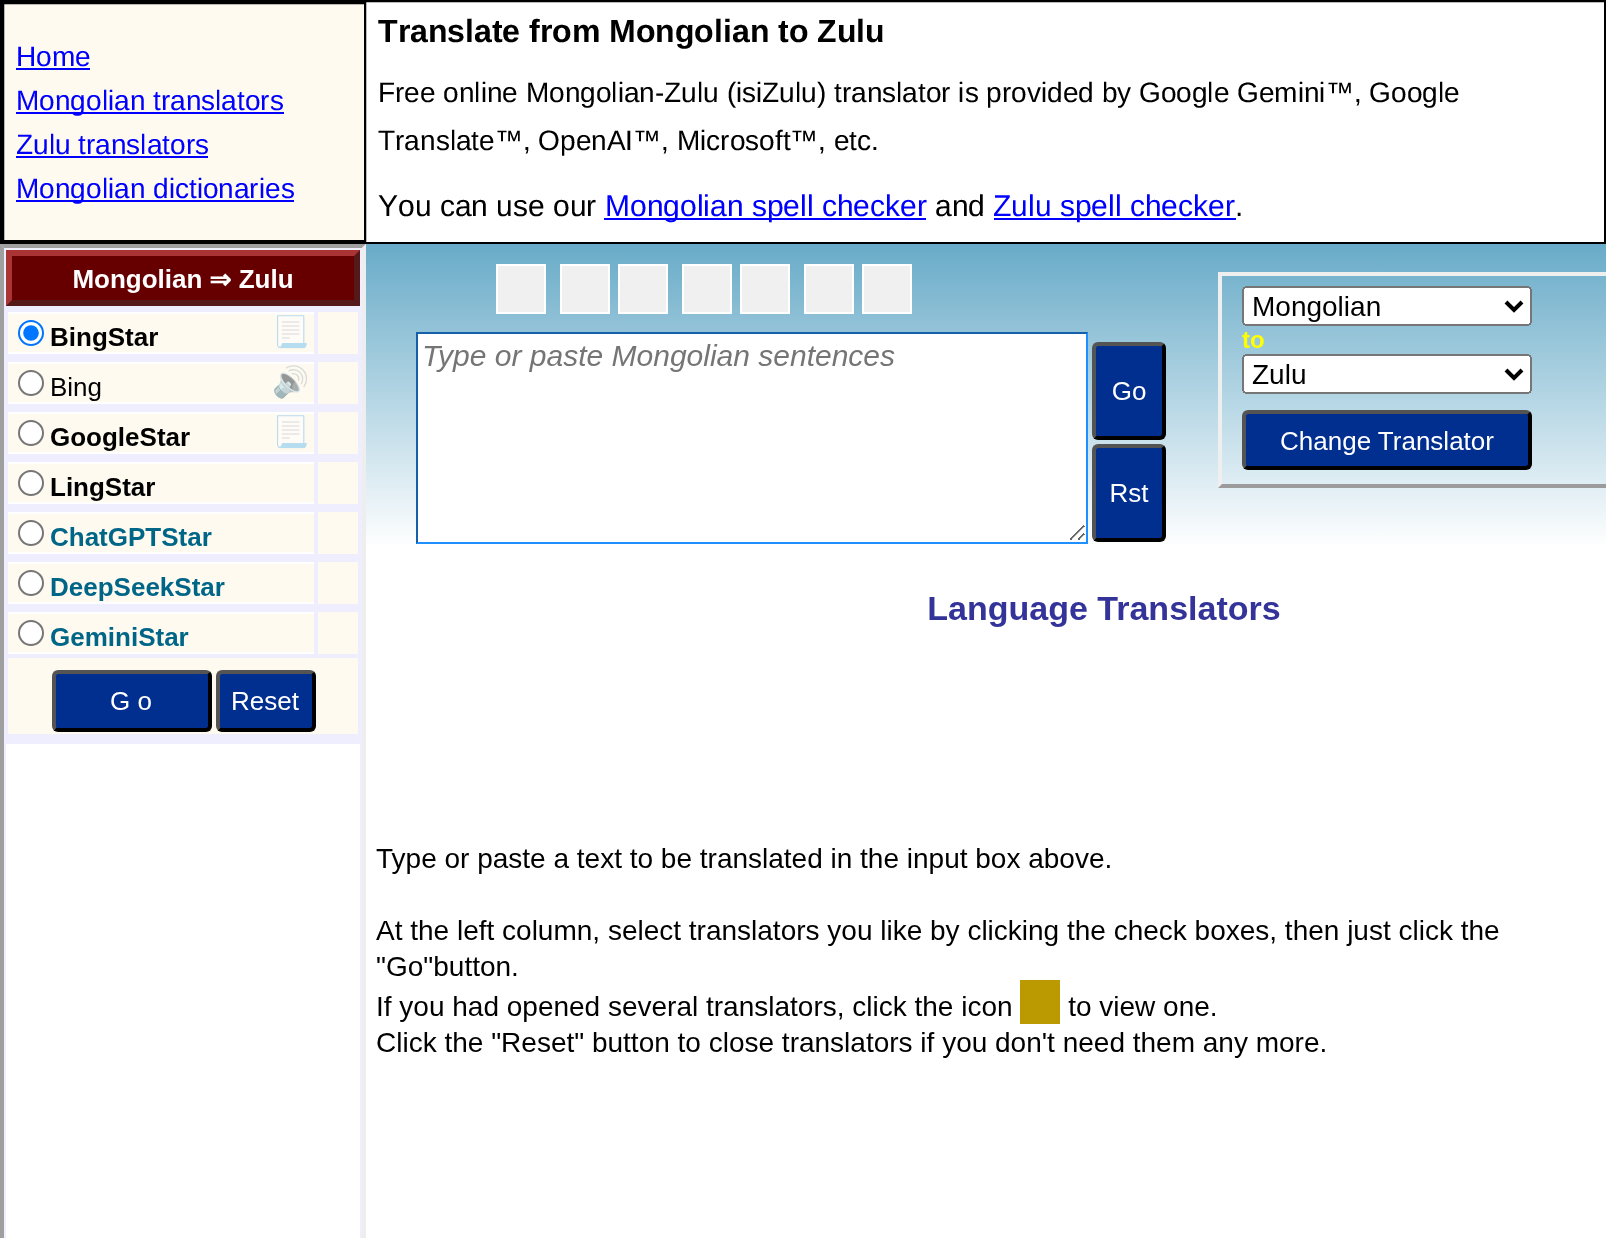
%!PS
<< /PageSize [1606 1238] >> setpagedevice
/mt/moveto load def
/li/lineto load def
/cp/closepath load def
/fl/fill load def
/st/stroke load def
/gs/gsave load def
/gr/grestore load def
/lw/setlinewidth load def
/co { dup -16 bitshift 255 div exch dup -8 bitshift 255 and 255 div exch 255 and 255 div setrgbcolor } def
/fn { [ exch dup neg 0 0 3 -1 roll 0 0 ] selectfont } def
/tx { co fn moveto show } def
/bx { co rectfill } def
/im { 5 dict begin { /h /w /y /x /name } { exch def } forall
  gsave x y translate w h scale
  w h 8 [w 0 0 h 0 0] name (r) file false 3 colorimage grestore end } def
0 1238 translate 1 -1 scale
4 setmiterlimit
0 0 1606 1238 16#FFFFFF bx
16#000000 co
2 lw
1 1 1604 242 rectstroke
16#FEFAEF co
3 3 mt 365 3 li 365 241 li 3 241 li cp gs fl gr
16#000000 co
st
16 68 74 2 16#0000FF bx
16 112 268 2 16#0000FF bx
16 156 192 2 16#0000FF bx
16 200 278 2 16#0000FF bx
604 218 322 2 16#0000FF bx
994 218 242 2 16#0000FF bx
16#9F9F9F co
0 244 mt 366 244 li 362 248 li 4 248 li cp fl
0 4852 mt 0 244 li 4 248 li 4 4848 li cp fl
(media/1.raw) 4 248 358 990 im
16#EEEEEE co
366 244 mt 366 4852 li 362 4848 li 362 248 li cp fl
(media/2.raw) 366 244 1240 300 im
(media/3.raw) 376 596 1123 462 im
(Home) 16 66 /LiberationSans-Regular 28 16#0000FF tx
(Mongolian translators) 16 110 /LiberationSans-Regular 28 16#0000FF tx
(Zulu translators) 16 154 /LiberationSans-Regular 28 16#0000FF tx
(Mongolian dictionaries) 16 198 /LiberationSans-Regular 28 16#0000FF tx
(Translate from Mongolian to Zulu) 378 42 /LiberationSans-Bold 32 16#000000 tx
(Free online Mongolian-Zulu \(isiZulu\) translator is provided by Google Gemini™, Google) 378 102 /LiberationSans-Regular 28 16#000000 tx
(Translate™, OpenAI™, Microsoft™, etc.) 378 150 /LiberationSans-Regular 28 16#000000 tx
(You can use our) 378 216 /LiberationSans-Regular 30 16#000000 tx
(Mongolian spell checker) 605 216 /LiberationSans-Regular 30 16#0000FF tx
(and) 935 216 /LiberationSans-Regular 30 16#000000 tx
(Zulu spell checker) 993 216 /LiberationSans-Regular 30 16#0000FF tx
(.) 1235 216 /LiberationSans-Regular 30 16#000000 tx
showpage
